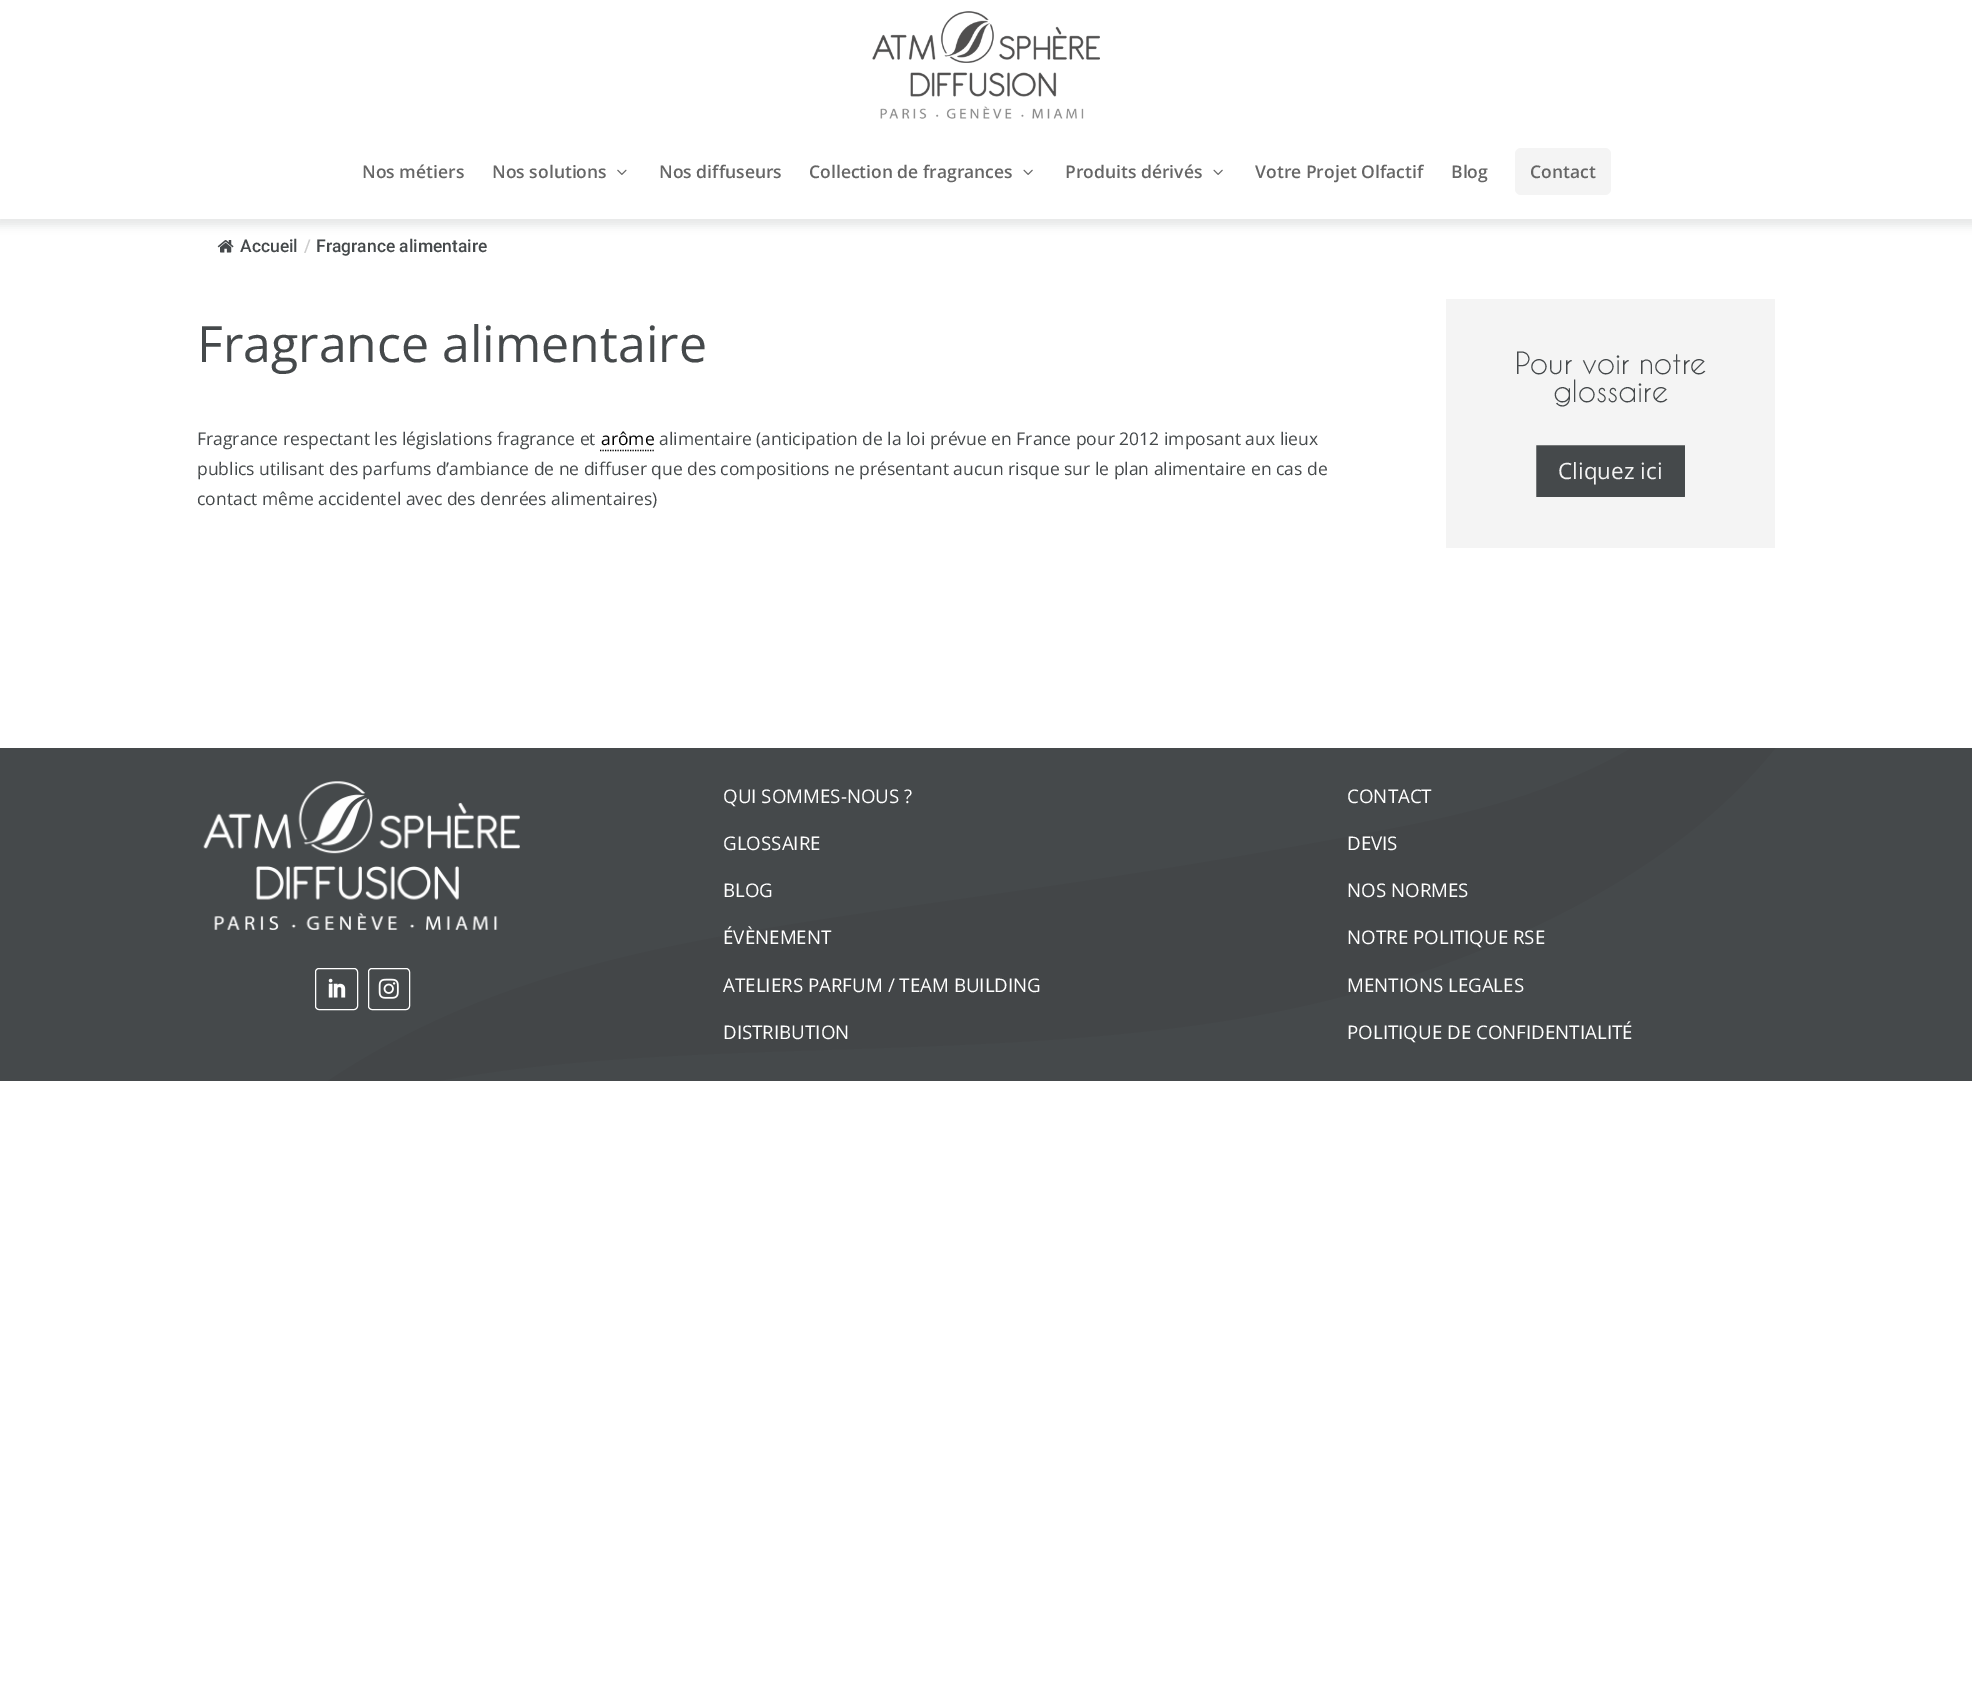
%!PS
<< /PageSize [1972 1684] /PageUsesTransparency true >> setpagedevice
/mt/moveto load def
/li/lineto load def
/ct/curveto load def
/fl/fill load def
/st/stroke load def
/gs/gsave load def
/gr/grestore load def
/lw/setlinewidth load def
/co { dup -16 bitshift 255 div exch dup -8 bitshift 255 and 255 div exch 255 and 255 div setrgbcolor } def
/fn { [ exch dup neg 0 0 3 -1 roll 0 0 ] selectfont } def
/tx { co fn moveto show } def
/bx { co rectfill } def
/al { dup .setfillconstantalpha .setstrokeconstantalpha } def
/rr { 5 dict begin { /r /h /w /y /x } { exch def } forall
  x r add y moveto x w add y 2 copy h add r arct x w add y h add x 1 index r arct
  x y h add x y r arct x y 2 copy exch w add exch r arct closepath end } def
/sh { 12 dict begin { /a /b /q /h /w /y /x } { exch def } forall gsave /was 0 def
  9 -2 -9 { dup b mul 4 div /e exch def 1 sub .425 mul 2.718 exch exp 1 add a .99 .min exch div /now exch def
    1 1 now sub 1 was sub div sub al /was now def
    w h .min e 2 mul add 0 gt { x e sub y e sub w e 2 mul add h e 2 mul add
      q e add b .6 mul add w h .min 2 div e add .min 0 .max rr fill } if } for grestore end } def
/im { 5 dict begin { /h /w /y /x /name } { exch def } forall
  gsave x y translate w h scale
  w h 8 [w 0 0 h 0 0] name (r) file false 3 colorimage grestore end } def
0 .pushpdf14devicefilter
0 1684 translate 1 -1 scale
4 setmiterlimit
0 0 1972 1684 16#FFFFFF bx
16#45494B co
-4 0 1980 226 0 4 .12 sh
0 0 1972 219 16#FFFFFF bx
(media/1.raw) 872 11 228 108 im
(media/2.raw) 617 169 10 6 im
(media/3.raw) 1023 169 10 6 im
(media/3.raw) 1213 169 10 6 im
16#F4F4F4 co
1515 148 96 47 6 rr fl
(media/4.raw) 217 240 17 13 im
16#000000 co
1.2 lw
[1.25 1.25] 0 setdash
600 450.5 mt 654 450.5 li st
1446 299 329 249 16#F4F4F4 bx
16#45494B co
1535.5 444.5 150 53 .5 rr gs fl gr
16#F4F4F4 co
1 lw
[] 0 setdash
st
0 748 1972 333 16#45494B bx
gs
227 748 1625 333 rectclip
16#434648 co
227 1159 mt 486 989 1008 1102 1383 985 ct 1774 863 1834 658 1849 609 ct 1866 555 1816 580 1802 597 ct 1654 783 1503 809 1314 843 ct 770 943 502 914 227 1159 ct fl
gr
(media/5.raw) 203 781 317 149 im
16#FFFFFF co
315.5 968.5 42 41 3.5 rr st
(media/6.raw) 328 978 18 20 im
368.5 968.5 41 41 3.5 rr st
(media/7.raw) 378 978 21 21 im
(Nos métiers) 362 178 /OpenSans-SemiBold 17.5 16#666666 tx
(Nos solutions) 492 178 /OpenSans-SemiBold 17.5 16#666666 tx
(Nos diffuseurs) 659 178 /OpenSans-SemiBold 17.5 16#666666 tx
(Collection de fragrances) 809 178 /OpenSans-SemiBold 17.5 16#666666 tx
(Produits dérivés) 1065 178 /OpenSans-SemiBold 17.5 16#666666 tx
(Votre Projet Olfactif) 1255 178 /OpenSans-SemiBold 17.5 16#666666 tx
(Blog) 1451 178 /OpenSans-SemiBold 17.5 16#666666 tx
(Contact) 1530 178 /OpenSans-SemiBold 17.5 16#666666 tx
(Accueil) 240 252 /Roboto-Medium 17.5 16#45494B tx
(/) 304 252 /Roboto-Medium 17.5 16#CCCCCC tx
(Fragrance alimentaire) 316 252 /Roboto-Medium 17.5 16#45494B tx
(Fragrance alimentaire) 197 362 /OpenSans-Regular 50 16#45494B tx
(Fragrance respectant les législations fragrance et) 197 445 /OpenSans-Regular 17.5 16#45494B tx
(arôme) 601 445 /OpenSans-Regular 17.5 16#000000 tx
(alimentaire \(anticipation de la loi prévue en France pour 2012 imposant aux lieux) 659 445 /OpenSans-Regular 17.5 16#45494B tx
(publics utilisant des parfums d’ambiance de ne diffuser que des compositions ne présentant aucun risque sur le plan alimentaire en cas de) 197 475 /OpenSans-Regular 17.5 16#45494B tx
(contact même accidentel avec des denrées alimentaires\)) 197 505 /OpenSans-Regular 17.5 16#45494B tx
(Pour voir notre) 1515 374 /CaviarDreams-Light 28.75 16#45494B tx
(glossaire) 1553 402 /CaviarDreams-Light 28.75 16#45494B tx
(Cliquez ici) 1558 479 /OpenSans-Regular 22.5 16#F4F4F4 tx
(QUI SOMMES-NOUS ?) 723 803 /OpenSans-Regular 18.75 16#FFFFFF tx
(GLOSSAIRE) 723 850 /OpenSans-Regular 18.75 16#FFFFFF tx
(BLOG) 723 897 /OpenSans-Regular 18.75 16#FFFFFF tx
(ÉVÈNEMENT) 723 944 /OpenSans-Regular 18.75 16#FFFFFF tx
(ATELIERS PARFUM / TEAM BUILDING) 723 992 /OpenSans-Regular 18.75 16#FFFFFF tx
(DISTRIBUTION) 723 1039 /OpenSans-Regular 18.75 16#FFFFFF tx
(CONTACT) 1347 803 /OpenSans-Regular 18.75 16#FFFFFF tx
(DEVIS) 1347 850 /OpenSans-Regular 18.75 16#FFFFFF tx
(NOS NORMES) 1347 897 /OpenSans-Regular 18.75 16#FFFFFF tx
(NOTRE POLITIQUE RSE) 1347 944 /OpenSans-Regular 18.75 16#FFFFFF tx
(MENTIONS LEGALES) 1347 992 /OpenSans-Regular 18.75 16#FFFFFF tx
(POLITIQUE DE CONFIDENTIALITÉ) 1347 1039 /OpenSans-Regular 18.75 16#FFFFFF tx
.poppdf14devicefilter showpage
